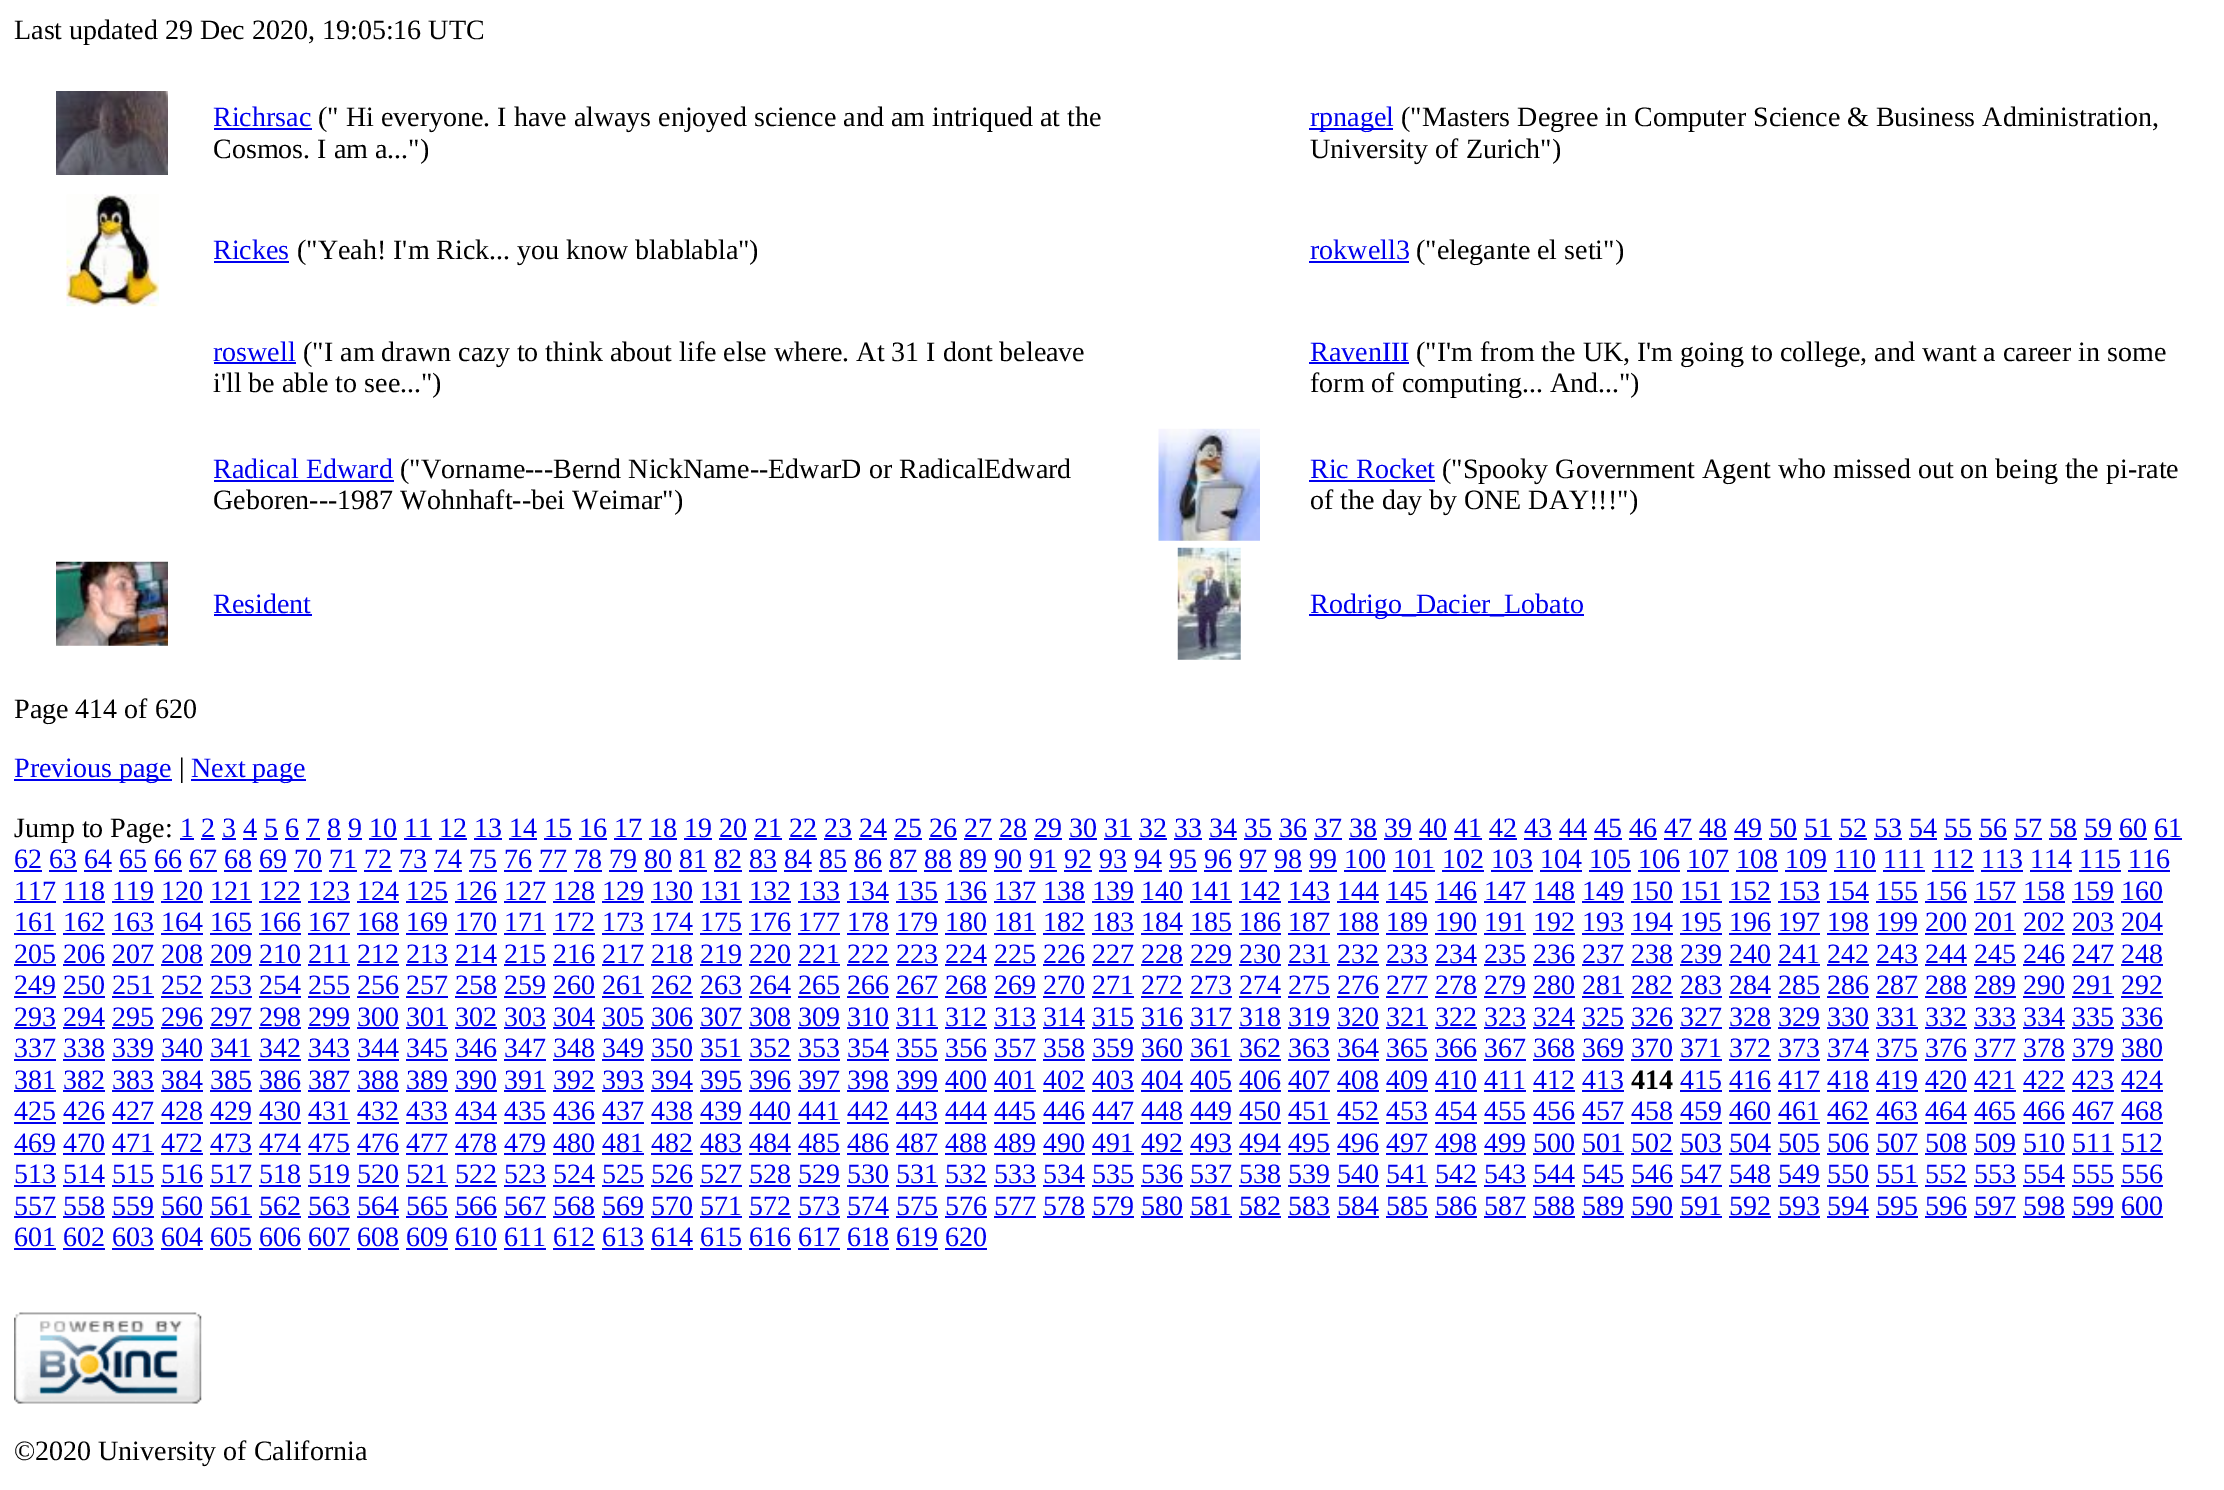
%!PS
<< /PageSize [2224 1490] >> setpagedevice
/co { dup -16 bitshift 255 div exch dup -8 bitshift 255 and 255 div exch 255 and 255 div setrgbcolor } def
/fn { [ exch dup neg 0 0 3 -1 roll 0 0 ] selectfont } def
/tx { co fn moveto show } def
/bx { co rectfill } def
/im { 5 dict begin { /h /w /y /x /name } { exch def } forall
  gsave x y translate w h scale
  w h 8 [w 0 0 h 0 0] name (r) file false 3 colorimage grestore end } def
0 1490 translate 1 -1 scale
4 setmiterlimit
0 0 2224 1490 16#FFFFFF bx
(media/1.raw) 56 91 112 84 im
214 128 98 2 16#0000EE bx
1309 128 84 2 16#0000EE bx
(media/2.raw) 66 194 94 113 im
214 261 75 2 16#0000EE bx
1309 261 100 2 16#0000EE bx
214 362 82 2 16#0000EE bx
1309 362 100 2 16#0000EE bx
214 480 180 2 16#0000EE bx
(media/3.raw) 1158 428 102 113 im
1309 480 126 2 16#0000EE bx
(media/4.raw) 56 561 112 85 im
214 614 98 2 16#0000EE bx
(media/5.raw) 1177 547 64 113 im
1309 614 275 2 16#0000EE bx
14 779 158 2 16#0000EE bx
191 779 115 2 16#0000EE bx
180 838 14 2 16#0000EE bx
201 838 14 2 16#0000EE bx
222 838 14 2 16#0000EE bx
243 838 14 2 16#0000EE bx
264 838 14 2 16#0000EE bx
285 838 14 2 16#0000EE bx
306 838 14 2 16#0000EE bx
327 838 14 2 16#0000EE bx
348 838 14 2 16#0000EE bx
369 838 28 2 16#0000EE bx
404 838 28 2 16#0000EE bx
439 838 28 2 16#0000EE bx
474 838 28 2 16#0000EE bx
509 838 28 2 16#0000EE bx
544 838 28 2 16#0000EE bx
579 838 28 2 16#0000EE bx
614 838 28 2 16#0000EE bx
649 838 28 2 16#0000EE bx
684 838 28 2 16#0000EE bx
719 838 28 2 16#0000EE bx
754 838 28 2 16#0000EE bx
789 838 28 2 16#0000EE bx
824 838 28 2 16#0000EE bx
859 838 28 2 16#0000EE bx
894 838 28 2 16#0000EE bx
929 838 28 2 16#0000EE bx
964 838 28 2 16#0000EE bx
999 838 28 2 16#0000EE bx
1034 838 28 2 16#0000EE bx
1069 838 28 2 16#0000EE bx
1104 838 28 2 16#0000EE bx
1139 838 28 2 16#0000EE bx
1174 838 28 2 16#0000EE bx
1209 838 28 2 16#0000EE bx
1244 838 28 2 16#0000EE bx
1279 838 28 2 16#0000EE bx
1314 838 28 2 16#0000EE bx
1349 838 28 2 16#0000EE bx
1384 838 28 2 16#0000EE bx
1419 838 28 2 16#0000EE bx
1454 838 28 2 16#0000EE bx
1489 838 28 2 16#0000EE bx
1524 838 28 2 16#0000EE bx
1559 838 28 2 16#0000EE bx
1594 838 28 2 16#0000EE bx
1629 838 28 2 16#0000EE bx
1664 838 28 2 16#0000EE bx
1699 838 28 2 16#0000EE bx
1734 838 28 2 16#0000EE bx
1769 838 28 2 16#0000EE bx
1804 838 28 2 16#0000EE bx
1839 838 28 2 16#0000EE bx
1874 838 28 2 16#0000EE bx
1909 838 28 2 16#0000EE bx
1944 838 28 2 16#0000EE bx
1979 838 28 2 16#0000EE bx
2014 838 28 2 16#0000EE bx
2049 838 28 2 16#0000EE bx
2084 838 28 2 16#0000EE bx
2119 838 28 2 16#0000EE bx
2154 838 28 2 16#0000EE bx
14 870 28 2 16#0000EE bx
49 870 28 2 16#0000EE bx
84 870 28 2 16#0000EE bx
119 870 28 2 16#0000EE bx
154 870 28 2 16#0000EE bx
189 870 28 2 16#0000EE bx
224 870 28 2 16#0000EE bx
259 870 28 2 16#0000EE bx
294 870 28 2 16#0000EE bx
329 870 28 2 16#0000EE bx
364 870 28 2 16#0000EE bx
399 870 28 2 16#0000EE bx
434 870 28 2 16#0000EE bx
469 870 28 2 16#0000EE bx
504 870 28 2 16#0000EE bx
539 870 28 2 16#0000EE bx
574 870 28 2 16#0000EE bx
609 870 28 2 16#0000EE bx
644 870 28 2 16#0000EE bx
679 870 28 2 16#0000EE bx
714 870 28 2 16#0000EE bx
749 870 28 2 16#0000EE bx
784 870 28 2 16#0000EE bx
819 870 28 2 16#0000EE bx
854 870 28 2 16#0000EE bx
889 870 28 2 16#0000EE bx
924 870 28 2 16#0000EE bx
959 870 28 2 16#0000EE bx
994 870 28 2 16#0000EE bx
1029 870 28 2 16#0000EE bx
1064 870 28 2 16#0000EE bx
1099 870 28 2 16#0000EE bx
1134 870 28 2 16#0000EE bx
1169 870 28 2 16#0000EE bx
1204 870 28 2 16#0000EE bx
1239 870 28 2 16#0000EE bx
1274 870 28 2 16#0000EE bx
1309 870 28 2 16#0000EE bx
1344 870 42 2 16#0000EE bx
1393 870 42 2 16#0000EE bx
1442 870 42 2 16#0000EE bx
1491 870 42 2 16#0000EE bx
1540 870 42 2 16#0000EE bx
1589 870 42 2 16#0000EE bx
1638 870 42 2 16#0000EE bx
1687 870 42 2 16#0000EE bx
1736 870 42 2 16#0000EE bx
1785 870 42 2 16#0000EE bx
1834 870 42 2 16#0000EE bx
1883 870 42 2 16#0000EE bx
1932 870 42 2 16#0000EE bx
1981 870 42 2 16#0000EE bx
2030 870 42 2 16#0000EE bx
2079 870 42 2 16#0000EE bx
2128 870 42 2 16#0000EE bx
14 901 42 2 16#0000EE bx
63 901 42 2 16#0000EE bx
112 901 42 2 16#0000EE bx
161 901 42 2 16#0000EE bx
210 901 42 2 16#0000EE bx
259 901 42 2 16#0000EE bx
308 901 42 2 16#0000EE bx
357 901 42 2 16#0000EE bx
406 901 42 2 16#0000EE bx
455 901 42 2 16#0000EE bx
504 901 42 2 16#0000EE bx
553 901 42 2 16#0000EE bx
602 901 42 2 16#0000EE bx
651 901 42 2 16#0000EE bx
700 901 42 2 16#0000EE bx
749 901 42 2 16#0000EE bx
798 901 42 2 16#0000EE bx
847 901 42 2 16#0000EE bx
896 901 42 2 16#0000EE bx
945 901 42 2 16#0000EE bx
994 901 42 2 16#0000EE bx
1043 901 42 2 16#0000EE bx
1092 901 42 2 16#0000EE bx
1141 901 42 2 16#0000EE bx
1190 901 42 2 16#0000EE bx
1239 901 42 2 16#0000EE bx
1288 901 42 2 16#0000EE bx
1337 901 42 2 16#0000EE bx
1386 901 42 2 16#0000EE bx
1435 901 42 2 16#0000EE bx
1484 901 42 2 16#0000EE bx
1533 901 42 2 16#0000EE bx
1582 901 42 2 16#0000EE bx
1631 901 42 2 16#0000EE bx
1680 901 42 2 16#0000EE bx
1729 901 42 2 16#0000EE bx
1778 901 42 2 16#0000EE bx
1827 901 42 2 16#0000EE bx
1876 901 42 2 16#0000EE bx
1925 901 42 2 16#0000EE bx
1974 901 42 2 16#0000EE bx
2023 901 42 2 16#0000EE bx
2072 901 42 2 16#0000EE bx
2121 901 42 2 16#0000EE bx
14 933 42 2 16#0000EE bx
63 933 42 2 16#0000EE bx
112 933 42 2 16#0000EE bx
161 933 42 2 16#0000EE bx
210 933 42 2 16#0000EE bx
259 933 42 2 16#0000EE bx
308 933 42 2 16#0000EE bx
357 933 42 2 16#0000EE bx
406 933 42 2 16#0000EE bx
455 933 42 2 16#0000EE bx
504 933 42 2 16#0000EE bx
553 933 42 2 16#0000EE bx
602 933 42 2 16#0000EE bx
651 933 42 2 16#0000EE bx
700 933 42 2 16#0000EE bx
749 933 42 2 16#0000EE bx
798 933 42 2 16#0000EE bx
847 933 42 2 16#0000EE bx
896 933 42 2 16#0000EE bx
945 933 42 2 16#0000EE bx
994 933 42 2 16#0000EE bx
1043 933 42 2 16#0000EE bx
1092 933 42 2 16#0000EE bx
1141 933 42 2 16#0000EE bx
1190 933 42 2 16#0000EE bx
1239 933 42 2 16#0000EE bx
1288 933 42 2 16#0000EE bx
1337 933 42 2 16#0000EE bx
1386 933 42 2 16#0000EE bx
1435 933 42 2 16#0000EE bx
1484 933 42 2 16#0000EE bx
1533 933 42 2 16#0000EE bx
1582 933 42 2 16#0000EE bx
1631 933 42 2 16#0000EE bx
1680 933 42 2 16#0000EE bx
1729 933 42 2 16#0000EE bx
1778 933 42 2 16#0000EE bx
1827 933 42 2 16#0000EE bx
1876 933 42 2 16#0000EE bx
1925 933 42 2 16#0000EE bx
1974 933 42 2 16#0000EE bx
2023 933 42 2 16#0000EE bx
2072 933 42 2 16#0000EE bx
2121 933 42 2 16#0000EE bx
14 964 42 2 16#0000EE bx
63 964 42 2 16#0000EE bx
112 964 42 2 16#0000EE bx
161 964 42 2 16#0000EE bx
210 964 42 2 16#0000EE bx
259 964 42 2 16#0000EE bx
308 964 42 2 16#0000EE bx
357 964 42 2 16#0000EE bx
406 964 42 2 16#0000EE bx
455 964 42 2 16#0000EE bx
504 964 42 2 16#0000EE bx
553 964 42 2 16#0000EE bx
602 964 42 2 16#0000EE bx
651 964 42 2 16#0000EE bx
700 964 42 2 16#0000EE bx
749 964 42 2 16#0000EE bx
798 964 42 2 16#0000EE bx
847 964 42 2 16#0000EE bx
896 964 42 2 16#0000EE bx
945 964 42 2 16#0000EE bx
994 964 42 2 16#0000EE bx
1043 964 42 2 16#0000EE bx
1092 964 42 2 16#0000EE bx
1141 964 42 2 16#0000EE bx
1190 964 42 2 16#0000EE bx
1239 964 42 2 16#0000EE bx
1288 964 42 2 16#0000EE bx
1337 964 42 2 16#0000EE bx
1386 964 42 2 16#0000EE bx
1435 964 42 2 16#0000EE bx
1484 964 42 2 16#0000EE bx
1533 964 42 2 16#0000EE bx
1582 964 42 2 16#0000EE bx
1631 964 42 2 16#0000EE bx
1680 964 42 2 16#0000EE bx
1729 964 42 2 16#0000EE bx
1778 964 42 2 16#0000EE bx
1827 964 42 2 16#0000EE bx
1876 964 42 2 16#0000EE bx
1925 964 42 2 16#0000EE bx
1974 964 42 2 16#0000EE bx
2023 964 42 2 16#0000EE bx
2072 964 42 2 16#0000EE bx
2121 964 42 2 16#0000EE bx
14 996 42 2 16#0000EE bx
63 996 42 2 16#0000EE bx
112 996 42 2 16#0000EE bx
161 996 42 2 16#0000EE bx
210 996 42 2 16#0000EE bx
259 996 42 2 16#0000EE bx
308 996 42 2 16#0000EE bx
357 996 42 2 16#0000EE bx
406 996 42 2 16#0000EE bx
455 996 42 2 16#0000EE bx
504 996 42 2 16#0000EE bx
553 996 42 2 16#0000EE bx
602 996 42 2 16#0000EE bx
651 996 42 2 16#0000EE bx
700 996 42 2 16#0000EE bx
749 996 42 2 16#0000EE bx
798 996 42 2 16#0000EE bx
847 996 42 2 16#0000EE bx
896 996 42 2 16#0000EE bx
945 996 42 2 16#0000EE bx
994 996 42 2 16#0000EE bx
1043 996 42 2 16#0000EE bx
1092 996 42 2 16#0000EE bx
1141 996 42 2 16#0000EE bx
1190 996 42 2 16#0000EE bx
1239 996 42 2 16#0000EE bx
1288 996 42 2 16#0000EE bx
1337 996 42 2 16#0000EE bx
1386 996 42 2 16#0000EE bx
1435 996 42 2 16#0000EE bx
1484 996 42 2 16#0000EE bx
1533 996 42 2 16#0000EE bx
1582 996 42 2 16#0000EE bx
1631 996 42 2 16#0000EE bx
1680 996 42 2 16#0000EE bx
1729 996 42 2 16#0000EE bx
1778 996 42 2 16#0000EE bx
1827 996 42 2 16#0000EE bx
1876 996 42 2 16#0000EE bx
1925 996 42 2 16#0000EE bx
1974 996 42 2 16#0000EE bx
2023 996 42 2 16#0000EE bx
2072 996 42 2 16#0000EE bx
2121 996 42 2 16#0000EE bx
14 1027 42 2 16#0000EE bx
63 1027 42 2 16#0000EE bx
112 1027 42 2 16#0000EE bx
161 1027 42 2 16#0000EE bx
210 1027 42 2 16#0000EE bx
259 1027 42 2 16#0000EE bx
308 1027 42 2 16#0000EE bx
357 1027 42 2 16#0000EE bx
406 1027 42 2 16#0000EE bx
455 1027 42 2 16#0000EE bx
504 1027 42 2 16#0000EE bx
553 1027 42 2 16#0000EE bx
602 1027 42 2 16#0000EE bx
651 1027 42 2 16#0000EE bx
700 1027 42 2 16#0000EE bx
749 1027 42 2 16#0000EE bx
798 1027 42 2 16#0000EE bx
847 1027 42 2 16#0000EE bx
896 1027 42 2 16#0000EE bx
945 1027 42 2 16#0000EE bx
994 1027 42 2 16#0000EE bx
1043 1027 42 2 16#0000EE bx
1092 1027 42 2 16#0000EE bx
1141 1027 42 2 16#0000EE bx
1190 1027 42 2 16#0000EE bx
1239 1027 42 2 16#0000EE bx
1288 1027 42 2 16#0000EE bx
1337 1027 42 2 16#0000EE bx
1386 1027 42 2 16#0000EE bx
1435 1027 42 2 16#0000EE bx
1484 1027 42 2 16#0000EE bx
1533 1027 42 2 16#0000EE bx
1582 1027 42 2 16#0000EE bx
1631 1027 42 2 16#0000EE bx
1680 1027 42 2 16#0000EE bx
1729 1027 42 2 16#0000EE bx
1778 1027 42 2 16#0000EE bx
1827 1027 42 2 16#0000EE bx
1876 1027 42 2 16#0000EE bx
1925 1027 42 2 16#0000EE bx
1974 1027 42 2 16#0000EE bx
2023 1027 42 2 16#0000EE bx
2072 1027 42 2 16#0000EE bx
2121 1027 42 2 16#0000EE bx
14 1059 42 2 16#0000EE bx
63 1059 42 2 16#0000EE bx
112 1059 42 2 16#0000EE bx
161 1059 42 2 16#0000EE bx
210 1059 42 2 16#0000EE bx
259 1059 42 2 16#0000EE bx
308 1059 42 2 16#0000EE bx
357 1059 42 2 16#0000EE bx
406 1059 42 2 16#0000EE bx
455 1059 42 2 16#0000EE bx
504 1059 42 2 16#0000EE bx
553 1059 42 2 16#0000EE bx
602 1059 42 2 16#0000EE bx
651 1059 42 2 16#0000EE bx
700 1059 42 2 16#0000EE bx
749 1059 42 2 16#0000EE bx
798 1059 42 2 16#0000EE bx
847 1059 42 2 16#0000EE bx
896 1059 42 2 16#0000EE bx
945 1059 42 2 16#0000EE bx
994 1059 42 2 16#0000EE bx
1043 1059 42 2 16#0000EE bx
1092 1059 42 2 16#0000EE bx
1141 1059 42 2 16#0000EE bx
1190 1059 42 2 16#0000EE bx
1239 1059 42 2 16#0000EE bx
1288 1059 42 2 16#0000EE bx
1337 1059 42 2 16#0000EE bx
1386 1059 42 2 16#0000EE bx
1435 1059 42 2 16#0000EE bx
1484 1059 42 2 16#0000EE bx
1533 1059 42 2 16#0000EE bx
1582 1059 42 2 16#0000EE bx
1631 1059 42 2 16#0000EE bx
1680 1059 42 2 16#0000EE bx
1729 1059 42 2 16#0000EE bx
1778 1059 42 2 16#0000EE bx
1827 1059 42 2 16#0000EE bx
1876 1059 42 2 16#0000EE bx
1925 1059 42 2 16#0000EE bx
1974 1059 42 2 16#0000EE bx
2023 1059 42 2 16#0000EE bx
2072 1059 42 2 16#0000EE bx
2121 1059 42 2 16#0000EE bx
14 1090 42 2 16#0000EE bx
1680 1090 42 2 16#0000EE bx
63 1090 42 2 16#0000EE bx
112 1090 42 2 16#0000EE bx
161 1090 42 2 16#0000EE bx
210 1090 42 2 16#0000EE bx
259 1090 42 2 16#0000EE bx
308 1090 42 2 16#0000EE bx
357 1090 42 2 16#0000EE bx
406 1090 42 2 16#0000EE bx
455 1090 42 2 16#0000EE bx
504 1090 42 2 16#0000EE bx
553 1090 42 2 16#0000EE bx
602 1090 42 2 16#0000EE bx
651 1090 42 2 16#0000EE bx
700 1090 42 2 16#0000EE bx
749 1090 42 2 16#0000EE bx
798 1090 42 2 16#0000EE bx
847 1090 42 2 16#0000EE bx
896 1090 42 2 16#0000EE bx
945 1090 42 2 16#0000EE bx
994 1090 42 2 16#0000EE bx
1043 1090 42 2 16#0000EE bx
1092 1090 42 2 16#0000EE bx
1141 1090 42 2 16#0000EE bx
1190 1090 42 2 16#0000EE bx
1239 1090 42 2 16#0000EE bx
1288 1090 42 2 16#0000EE bx
1337 1090 42 2 16#0000EE bx
1386 1090 42 2 16#0000EE bx
1435 1090 42 2 16#0000EE bx
1484 1090 42 2 16#0000EE bx
1533 1090 42 2 16#0000EE bx
1582 1090 42 2 16#0000EE bx
1729 1090 42 2 16#0000EE bx
1778 1090 42 2 16#0000EE bx
1827 1090 42 2 16#0000EE bx
1876 1090 42 2 16#0000EE bx
1925 1090 42 2 16#0000EE bx
1974 1090 42 2 16#0000EE bx
2023 1090 42 2 16#0000EE bx
2072 1090 42 2 16#0000EE bx
2121 1090 42 2 16#0000EE bx
14 1122 42 2 16#0000EE bx
63 1122 42 2 16#0000EE bx
112 1122 42 2 16#0000EE bx
161 1122 42 2 16#0000EE bx
210 1122 42 2 16#0000EE bx
259 1122 42 2 16#0000EE bx
308 1122 42 2 16#0000EE bx
357 1122 42 2 16#0000EE bx
406 1122 42 2 16#0000EE bx
455 1122 42 2 16#0000EE bx
504 1122 42 2 16#0000EE bx
553 1122 42 2 16#0000EE bx
602 1122 42 2 16#0000EE bx
651 1122 42 2 16#0000EE bx
700 1122 42 2 16#0000EE bx
749 1122 42 2 16#0000EE bx
798 1122 42 2 16#0000EE bx
847 1122 42 2 16#0000EE bx
896 1122 42 2 16#0000EE bx
945 1122 42 2 16#0000EE bx
994 1122 42 2 16#0000EE bx
1043 1122 42 2 16#0000EE bx
1092 1122 42 2 16#0000EE bx
1141 1122 42 2 16#0000EE bx
1190 1122 42 2 16#0000EE bx
1239 1122 42 2 16#0000EE bx
1288 1122 42 2 16#0000EE bx
1337 1122 42 2 16#0000EE bx
1386 1122 42 2 16#0000EE bx
1435 1122 42 2 16#0000EE bx
1484 1122 42 2 16#0000EE bx
1533 1122 42 2 16#0000EE bx
1582 1122 42 2 16#0000EE bx
1631 1122 42 2 16#0000EE bx
1680 1122 42 2 16#0000EE bx
1729 1122 42 2 16#0000EE bx
1778 1122 42 2 16#0000EE bx
1827 1122 42 2 16#0000EE bx
1876 1122 42 2 16#0000EE bx
1925 1122 42 2 16#0000EE bx
1974 1122 42 2 16#0000EE bx
2023 1122 42 2 16#0000EE bx
2072 1122 42 2 16#0000EE bx
2121 1122 42 2 16#0000EE bx
14 1153 42 2 16#0000EE bx
63 1153 42 2 16#0000EE bx
112 1153 42 2 16#0000EE bx
161 1153 42 2 16#0000EE bx
210 1153 42 2 16#0000EE bx
259 1153 42 2 16#0000EE bx
308 1153 42 2 16#0000EE bx
357 1153 42 2 16#0000EE bx
406 1153 42 2 16#0000EE bx
455 1153 42 2 16#0000EE bx
504 1153 42 2 16#0000EE bx
553 1153 42 2 16#0000EE bx
602 1153 42 2 16#0000EE bx
651 1153 42 2 16#0000EE bx
700 1153 42 2 16#0000EE bx
749 1153 42 2 16#0000EE bx
798 1153 42 2 16#0000EE bx
847 1153 42 2 16#0000EE bx
896 1153 42 2 16#0000EE bx
945 1153 42 2 16#0000EE bx
994 1153 42 2 16#0000EE bx
1043 1153 42 2 16#0000EE bx
1092 1153 42 2 16#0000EE bx
1141 1153 42 2 16#0000EE bx
1190 1153 42 2 16#0000EE bx
1239 1153 42 2 16#0000EE bx
1288 1153 42 2 16#0000EE bx
1337 1153 42 2 16#0000EE bx
1386 1153 42 2 16#0000EE bx
1435 1153 42 2 16#0000EE bx
1484 1153 42 2 16#0000EE bx
1533 1153 42 2 16#0000EE bx
1582 1153 42 2 16#0000EE bx
1631 1153 42 2 16#0000EE bx
1680 1153 42 2 16#0000EE bx
1729 1153 42 2 16#0000EE bx
1778 1153 42 2 16#0000EE bx
1827 1153 42 2 16#0000EE bx
1876 1153 42 2 16#0000EE bx
1925 1153 42 2 16#0000EE bx
1974 1153 42 2 16#0000EE bx
2023 1153 42 2 16#0000EE bx
2072 1153 42 2 16#0000EE bx
2121 1153 42 2 16#0000EE bx
14 1185 42 2 16#0000EE bx
63 1185 42 2 16#0000EE bx
112 1185 42 2 16#0000EE bx
161 1185 42 2 16#0000EE bx
210 1185 42 2 16#0000EE bx
259 1185 42 2 16#0000EE bx
308 1185 42 2 16#0000EE bx
357 1185 42 2 16#0000EE bx
406 1185 42 2 16#0000EE bx
455 1185 42 2 16#0000EE bx
504 1185 42 2 16#0000EE bx
553 1185 42 2 16#0000EE bx
602 1185 42 2 16#0000EE bx
651 1185 42 2 16#0000EE bx
700 1185 42 2 16#0000EE bx
749 1185 42 2 16#0000EE bx
798 1185 42 2 16#0000EE bx
847 1185 42 2 16#0000EE bx
896 1185 42 2 16#0000EE bx
945 1185 42 2 16#0000EE bx
994 1185 42 2 16#0000EE bx
1043 1185 42 2 16#0000EE bx
1092 1185 42 2 16#0000EE bx
1141 1185 42 2 16#0000EE bx
1190 1185 42 2 16#0000EE bx
1239 1185 42 2 16#0000EE bx
1288 1185 42 2 16#0000EE bx
1337 1185 42 2 16#0000EE bx
1386 1185 42 2 16#0000EE bx
1435 1185 42 2 16#0000EE bx
1484 1185 42 2 16#0000EE bx
1533 1185 42 2 16#0000EE bx
1582 1185 42 2 16#0000EE bx
1631 1185 42 2 16#0000EE bx
1680 1185 42 2 16#0000EE bx
1729 1185 42 2 16#0000EE bx
1778 1185 42 2 16#0000EE bx
1827 1185 42 2 16#0000EE bx
1876 1185 42 2 16#0000EE bx
1925 1185 42 2 16#0000EE bx
1974 1185 42 2 16#0000EE bx
2023 1185 42 2 16#0000EE bx
2072 1185 42 2 16#0000EE bx
2121 1185 42 2 16#0000EE bx
14 1216 42 2 16#0000EE bx
63 1216 42 2 16#0000EE bx
112 1216 42 2 16#0000EE bx
161 1216 42 2 16#0000EE bx
210 1216 42 2 16#0000EE bx
259 1216 42 2 16#0000EE bx
308 1216 42 2 16#0000EE bx
357 1216 42 2 16#0000EE bx
406 1216 42 2 16#0000EE bx
455 1216 42 2 16#0000EE bx
504 1216 42 2 16#0000EE bx
553 1216 42 2 16#0000EE bx
602 1216 42 2 16#0000EE bx
651 1216 42 2 16#0000EE bx
700 1216 42 2 16#0000EE bx
749 1216 42 2 16#0000EE bx
798 1216 42 2 16#0000EE bx
847 1216 42 2 16#0000EE bx
896 1216 42 2 16#0000EE bx
945 1216 42 2 16#0000EE bx
994 1216 42 2 16#0000EE bx
1043 1216 42 2 16#0000EE bx
1092 1216 42 2 16#0000EE bx
1141 1216 42 2 16#0000EE bx
1190 1216 42 2 16#0000EE bx
1239 1216 42 2 16#0000EE bx
1288 1216 42 2 16#0000EE bx
1337 1216 42 2 16#0000EE bx
1386 1216 42 2 16#0000EE bx
1435 1216 42 2 16#0000EE bx
1484 1216 42 2 16#0000EE bx
1533 1216 42 2 16#0000EE bx
1582 1216 42 2 16#0000EE bx
1631 1216 42 2 16#0000EE bx
1680 1216 42 2 16#0000EE bx
1729 1216 42 2 16#0000EE bx
1778 1216 42 2 16#0000EE bx
1827 1216 42 2 16#0000EE bx
1876 1216 42 2 16#0000EE bx
1925 1216 42 2 16#0000EE bx
1974 1216 42 2 16#0000EE bx
2023 1216 42 2 16#0000EE bx
2072 1216 42 2 16#0000EE bx
2121 1216 42 2 16#0000EE bx
14 1248 42 2 16#0000EE bx
63 1248 42 2 16#0000EE bx
112 1248 42 2 16#0000EE bx
161 1248 42 2 16#0000EE bx
210 1248 42 2 16#0000EE bx
259 1248 42 2 16#0000EE bx
308 1248 42 2 16#0000EE bx
357 1248 42 2 16#0000EE bx
406 1248 42 2 16#0000EE bx
455 1248 42 2 16#0000EE bx
504 1248 42 2 16#0000EE bx
553 1248 42 2 16#0000EE bx
602 1248 42 2 16#0000EE bx
651 1248 42 2 16#0000EE bx
700 1248 42 2 16#0000EE bx
749 1248 42 2 16#0000EE bx
798 1248 42 2 16#0000EE bx
847 1248 42 2 16#0000EE bx
896 1248 42 2 16#0000EE bx
945 1248 42 2 16#0000EE bx
(media/6.raw) 14 1312 188 92 im
(Last updated 29 Dec 2020, 19:05:16 UTC) 14 39 /LiberationSerif-Regular 28 16#000000 tx
(Richrsac) 213 126 /LiberationSerif-Regular 28 16#0000EE tx
(\(" Hi everyone. I have always enjoyed science and am intriqued at the) 318 126 /LiberationSerif-Regular 28 16#000000 tx
(Cosmos. I am a..."\)) 213 158 /LiberationSerif-Regular 28 16#000000 tx
(rpnagel) 1310 126 /LiberationSerif-Regular 28 16#0000EE tx
(\("Masters Degree in Computer Science & Business Administration,) 1401 126 /LiberationSerif-Regular 28 16#000000 tx
(University of Zurich"\)) 1310 158 /LiberationSerif-Regular 28 16#000000 tx
(Rickes) 213 259 /LiberationSerif-Regular 28 16#0000EE tx
(\("Yeah! I'm Rick... you know blablabla"\)) 297 259 /LiberationSerif-Regular 28 16#000000 tx
(rokwell3) 1310 259 /LiberationSerif-Regular 28 16#0000EE tx
(\("elegante el seti"\)) 1416 259 /LiberationSerif-Regular 28 16#000000 tx
(roswell) 213 361 /LiberationSerif-Regular 28 16#0000EE tx
(\("I am drawn cazy to think about life else where. At 31 I dont beleave) 303 361 /LiberationSerif-Regular 28 16#000000 tx
(i'll be able to see..."\)) 213 392 /LiberationSerif-Regular 28 16#000000 tx
(RavenIII) 1310 361 /LiberationSerif-Regular 28 16#0000EE tx
(\("I'm from the UK, I'm going to college, and want a career in some) 1416 361 /LiberationSerif-Regular 28 16#000000 tx
(form of computing... And..."\)) 1310 392 /LiberationSerif-Regular 28 16#000000 tx
(Radical Edward) 213 478 /LiberationSerif-Regular 28 16#0000EE tx
(\("Vorname---Bernd NickName--EdwarD or RadicalEdward) 400 478 /LiberationSerif-Regular 28 16#000000 tx
(Geboren---1987 Wohnhaft--bei Weimar"\)) 213 509 /LiberationSerif-Regular 28 16#000000 tx
(Ric Rocket) 1310 478 /LiberationSerif-Regular 28 16#0000EE tx
(\("Spooky Government Agent who missed out on being the pi-rate) 1442 478 /LiberationSerif-Regular 28 16#000000 tx
(of the day by ONE DAY!!!"\)) 1310 509 /LiberationSerif-Regular 28 16#000000 tx
(Resident) 213 613 /LiberationSerif-Regular 28 16#0000EE tx
(Rodrigo_Dacier_Lobato) 1310 613 /LiberationSerif-Regular 28 16#0000EE tx
(Page 414 of 620) 14 718 /LiberationSerif-Regular 28 16#000000 tx
(Previous page) 14 777 /LiberationSerif-Regular 28 16#0000EE tx
(|) 179 777 /LiberationSerif-Regular 28 16#000000 tx
(Next page) 191 777 /LiberationSerif-Regular 28 16#0000EE tx
(Jump to Page:) 14 837 /LiberationSerif-Regular 28 16#000000 tx
(1 2 3 4 5 6 7 8 9 10 11 12 13 14 15 16 17 18 19 20 21 22 23 24 25 26 27 28 29 30 31 32 33 34 35 36 37 38 39 40 41 42 43 44 45 46 47 48 49 50 51 52 53 54 55 56 57 58 59 60 61) 180 837 /LiberationSerif-Regular 28 16#0000EE tx
(62 63 64 65 66 67 68 69 70 71 72 73 74 75 76 77 78 79 80 81 82 83 84 85 86 87 88 89 90 91 92 93 94 95 96 97 98 99 100 101 102 103 104 105 106 107 108 109 110 111 112 113 114 115 116) 14 868 /LiberationSerif-Regular 28 16#0000EE tx
(117 118 119 120 121 122 123 124 125 126 127 128 129 130 131 132 133 134 135 136 137 138 139 140 141 142 143 144 145 146 147 148 149 150 151 152 153 154 155 156 157 158 159 160) 14 900 /LiberationSerif-Regular 28 16#0000EE tx
(161 162 163 164 165 166 167 168 169 170 171 172 173 174 175 176 177 178 179 180 181 182 183 184 185 186 187 188 189 190 191 192 193 194 195 196 197 198 199 200 201 202 203 204) 14 931 /LiberationSerif-Regular 28 16#0000EE tx
(205 206 207 208 209 210 211 212 213 214 215 216 217 218 219 220 221 222 223 224 225 226 227 228 229 230 231 232 233 234 235 236 237 238 239 240 241 242 243 244 245 246 247 248) 14 963 /LiberationSerif-Regular 28 16#0000EE tx
(249 250 251 252 253 254 255 256 257 258 259 260 261 262 263 264 265 266 267 268 269 270 271 272 273 274 275 276 277 278 279 280 281 282 283 284 285 286 287 288 289 290 291 292) 14 994 /LiberationSerif-Regular 28 16#0000EE tx
(293 294 295 296 297 298 299 300 301 302 303 304 305 306 307 308 309 310 311 312 313 314 315 316 317 318 319 320 321 322 323 324 325 326 327 328 329 330 331 332 333 334 335 336) 14 1026 /LiberationSerif-Regular 28 16#0000EE tx
(337 338 339 340 341 342 343 344 345 346 347 348 349 350 351 352 353 354 355 356 357 358 359 360 361 362 363 364 365 366 367 368 369 370 371 372 373 374 375 376 377 378 379 380) 14 1057 /LiberationSerif-Regular 28 16#0000EE tx
(381 382 383 384 385 386 387 388 389 390 391 392 393 394 395 396 397 398 399 400 401 402 403 404 405 406 407 408 409 410 411 412 413) 14 1089 /LiberationSerif-Regular 28 16#0000EE tx
(414) 1631 1089 /LiberationSerif-Bold 28 16#000000 tx
(415 416 417 418 419 420 421 422 423 424) 1680 1089 /LiberationSerif-Regular 28 16#0000EE tx
(425 426 427 428 429 430 431 432 433 434 435 436 437 438 439 440 441 442 443 444 445 446 447 448 449 450 451 452 453 454 455 456 457 458 459 460 461 462 463 464 465 466 467 468) 14 1120 /LiberationSerif-Regular 28 16#0000EE tx
(469 470 471 472 473 474 475 476 477 478 479 480 481 482 483 484 485 486 487 488 489 490 491 492 493 494 495 496 497 498 499 500 501 502 503 504 505 506 507 508 509 510 511 512) 14 1152 /LiberationSerif-Regular 28 16#0000EE tx
(513 514 515 516 517 518 519 520 521 522 523 524 525 526 527 528 529 530 531 532 533 534 535 536 537 538 539 540 541 542 543 544 545 546 547 548 549 550 551 552 553 554 555 556) 14 1183 /LiberationSerif-Regular 28 16#0000EE tx
(557 558 559 560 561 562 563 564 565 566 567 568 569 570 571 572 573 574 575 576 577 578 579 580 581 582 583 584 585 586 587 588 589 590 591 592 593 594 595 596 597 598 599 600) 14 1215 /LiberationSerif-Regular 28 16#0000EE tx
(601 602 603 604 605 606 607 608 609 610 611 612 613 614 615 616 617 618 619 620) 14 1246 /LiberationSerif-Regular 28 16#0000EE tx
(©2020 University of California) 14 1460 /LiberationSerif-Regular 28 16#000000 tx
showpage
